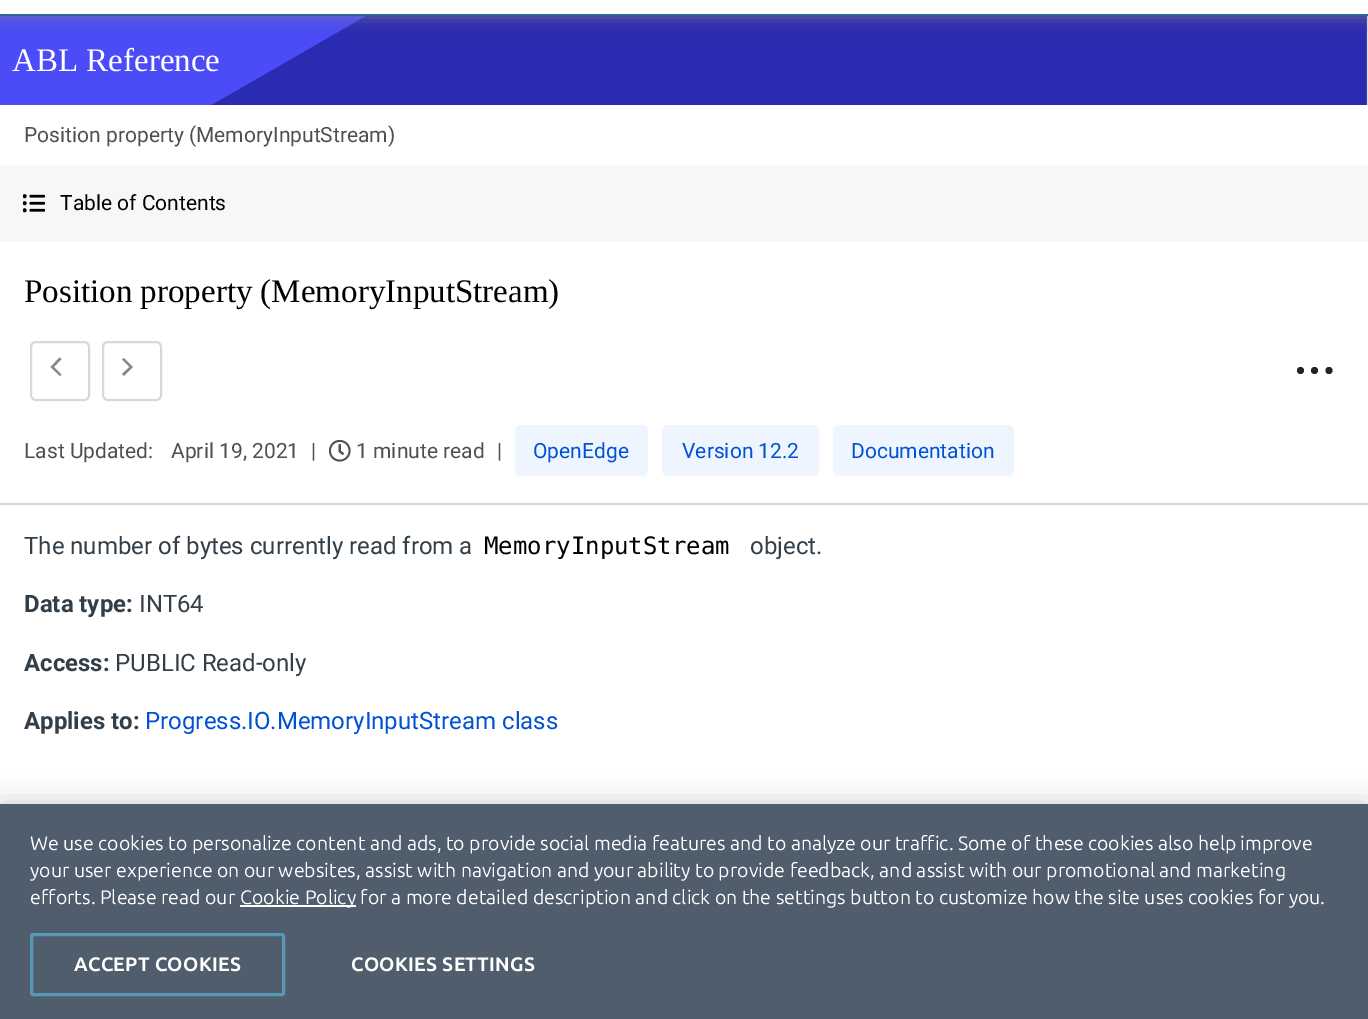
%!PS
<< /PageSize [1368 1019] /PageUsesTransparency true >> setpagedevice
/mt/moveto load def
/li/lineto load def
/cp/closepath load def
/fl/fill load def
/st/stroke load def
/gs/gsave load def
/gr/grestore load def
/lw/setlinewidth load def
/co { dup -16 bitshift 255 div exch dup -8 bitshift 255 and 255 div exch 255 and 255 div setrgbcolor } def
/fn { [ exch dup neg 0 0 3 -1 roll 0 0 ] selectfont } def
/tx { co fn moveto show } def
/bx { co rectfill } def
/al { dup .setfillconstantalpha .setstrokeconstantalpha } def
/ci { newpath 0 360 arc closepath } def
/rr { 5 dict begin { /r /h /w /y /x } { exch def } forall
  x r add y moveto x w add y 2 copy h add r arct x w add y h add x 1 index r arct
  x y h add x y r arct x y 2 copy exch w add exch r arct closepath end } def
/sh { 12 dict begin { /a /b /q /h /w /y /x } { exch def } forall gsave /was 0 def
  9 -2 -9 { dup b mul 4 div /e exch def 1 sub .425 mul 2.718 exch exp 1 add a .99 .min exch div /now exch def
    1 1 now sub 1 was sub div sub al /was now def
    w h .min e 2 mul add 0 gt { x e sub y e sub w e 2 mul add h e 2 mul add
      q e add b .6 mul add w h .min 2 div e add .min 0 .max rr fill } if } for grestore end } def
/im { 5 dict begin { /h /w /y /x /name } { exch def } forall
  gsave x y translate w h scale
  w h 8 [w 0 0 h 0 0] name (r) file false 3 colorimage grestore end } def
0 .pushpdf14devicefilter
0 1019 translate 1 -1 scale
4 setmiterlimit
0 0 1368 1019 16#FFFFFF bx
0 14 1368 2 16#024DB5 bx
(media/1.raw) 0 16 1368 89 im
gs
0 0 mt 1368 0 li 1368 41 li 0 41 li cp 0 -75 mt 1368 -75 li 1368 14 li 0 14 li cp eoclip newpath
16#838486 co
0 -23 1368 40 0 7.5 .62 sh
gr
0 165 1368 77 16#F7F7F7 bx
(media/2.raw) 23 194 22 19 im
0 503 1368 2 16#D8D8D8 bx
2 lw
31 342 58 58 5 rr st
16#838A91 co
61.5 359 mt 59.5 357.5 li 50.5 367 li 60 376 li 61.5 374.5 li 54 367 li cp fl
16#D8D8D8 co
103 342 58 58 5 rr st
16#838A91 co
122 374 mt 124 376 li 133 367 li 124 358 li 122 359.5 li 129.5 367 li cp fl
16#212529 co
1300.5 370.5 3.5 ci fl
1314.5 370.5 3.5 ci fl
1329 370.5 3.5 ci fl
(media/3.raw) 329 440 22 22 im
16#EEF5FF co
515 425 133 51 6 rr fl
662 425 157 51 6 rr fl
833 425 181 51 6 rr fl
16#000000 co
0 804 1368 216 0 13.5 .2 sh
0 804 1368 215 16#4F5D6C bx
240 905 116 2 16#FFFFFF bx
16#5699B6 co
3 lw
31.5 934.5 252 60 1.5 rr st
(ABL Reference) 12 71 /LiberationSerif-Regular 33 16#FFFFFF tx
(Position property \(MemoryInputStream\)) 24 142 /Roboto-Regular 21 16#4F4F4F tx
(Table of Contents) 60 210 /Roboto-Regular 21 16#000000 tx
(Position property \(MemoryInputStream\)) 24 302 /LiberationSerif-Regular 33 16#000000 tx
(Last Updated:) 24 458 /Roboto-Regular 21 16#4F4F4F tx
(April 19, 2021) 171 458 /Roboto-Regular 21 16#4F4F4F tx
(|) 311 458 /Roboto-Regular 21 16#4F4F4F tx
(1 minute read) 356 458 /Roboto-Regular 21 16#4F4F4F tx
(|) 497 458 /Roboto-Regular 21 16#4F4F4F tx
(OpenEdge) 533 458 /Roboto-Regular 21 16#0051D3 tx
(Version 12.2) 682 458 /Roboto-Regular 21 16#0051D3 tx
(Documentation) 851 458 /Roboto-Regular 21 16#0051D3 tx
(The number of bytes currently read from a) 24 554 /Roboto-Regular 24 16#323E48 tx
(MemoryInputStream) 484 554 /DejaVuSansMono-Regular 24 16#000000 tx
(object.) 750 554 /Roboto-Regular 24 16#323E48 tx
(Data type:) 24 612 /Roboto-Bold 24 16#323E48 tx
(INT64) 139 612 /Roboto-Regular 24 16#323E48 tx
(Access:) 24 671 /Roboto-Bold 24 16#323E48 tx
(PUBLIC Read-only) 115 671 /Roboto-Regular 24 16#323E48 tx
(Applies to:) 24 729 /Roboto-Bold 24 16#323E48 tx
(Progress.IO.MemoryInputStream class) 145 729 /Roboto-Regular 24 16#0051D3 tx
(We use cookies to personalize content and ads, to provide social media features and to analyze our traffic. Some of these cookies also help improve) 30 850 /Ubuntu-Regular 19.5 16#FFFFFF tx
(your user experience on our websites, assist with navigation and your ability to provide feedback, and assist with our promotional and marketing) 30 877 /Ubuntu-Regular 19.5 16#FFFFFF tx
(efforts. Please read our) 30 904 /Ubuntu-Regular 19.5 16#FFFFFF tx
(Cookie Policy for a more detailed description and click on the settings button to customize how the site uses cookies for you.) 240 904 /Ubuntu-Regular 19.5 16#FFFFFF tx
/Ubuntu-Bold 19.5 fn
74 971 mt .25 0 (ACCEPT COOKIES) ashow
351 971 mt .25 0 (COOKIES SETTINGS) ashow
.poppdf14devicefilter showpage
